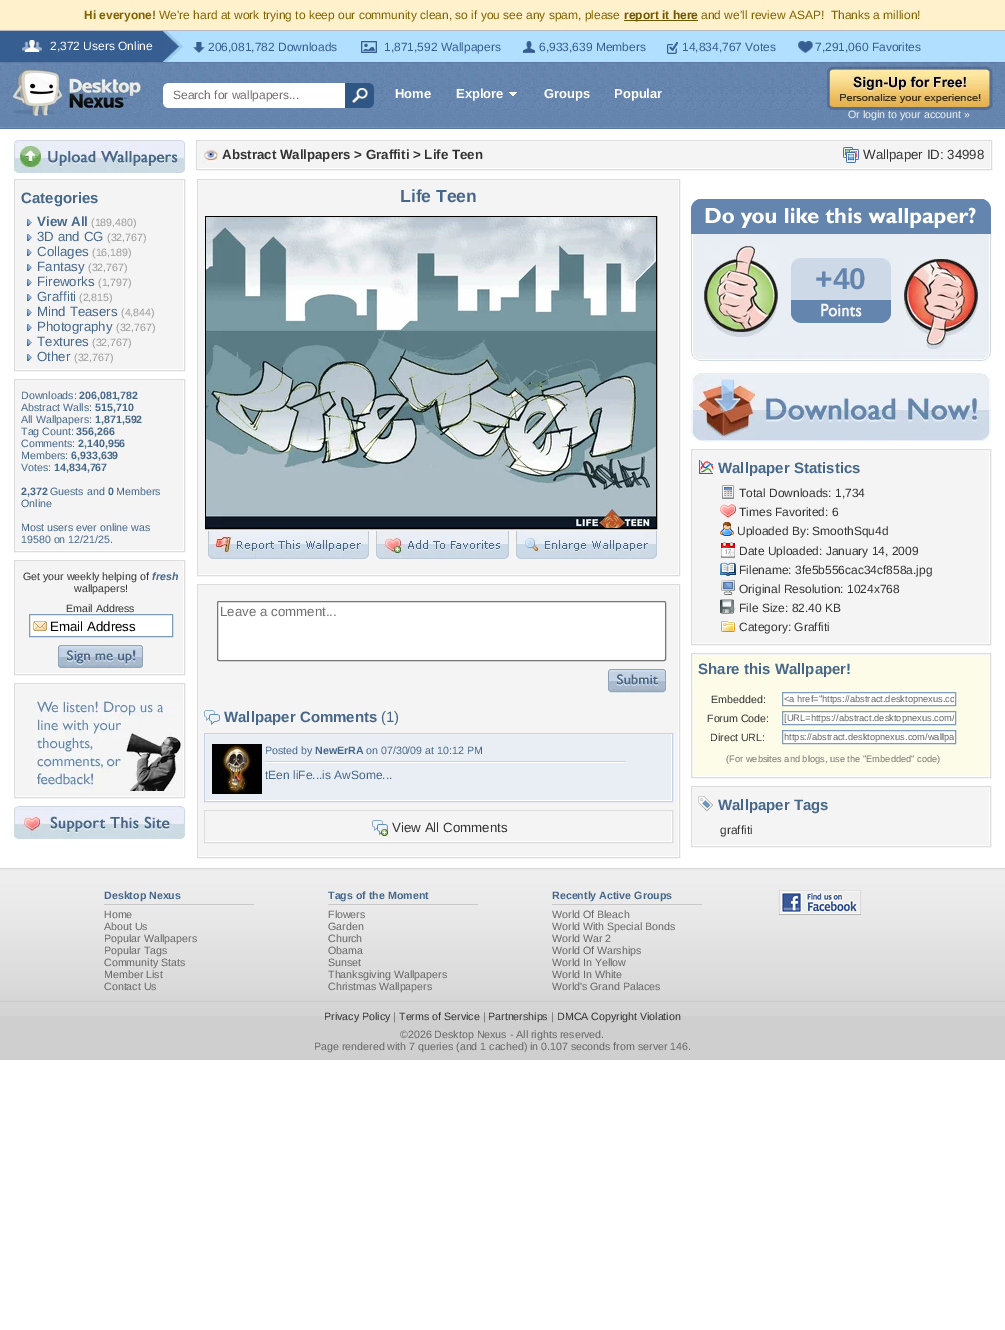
%!PS
<< /PageSize [1005 1330] >> setpagedevice
/mt/moveto load def
/li/lineto load def
/ct/curveto load def
/cp/closepath load def
/fl/fill load def
/st/stroke load def
/gs/gsave load def
/gr/grestore load def
/co { dup -16 bitshift 255 div exch dup -8 bitshift 255 and 255 div exch 255 and 255 div setrgbcolor } def
/fn { [ exch dup neg 0 0 3 -1 roll 0 0 ] selectfont } def
/tx { co fn moveto show } def
/bx { co rectfill } def
/rr { 5 dict begin { /r /h /w /y /x } { exch def } forall
  x r add y moveto x w add y 2 copy h add r arct x w add y h add x 1 index r arct
  x y h add x y r arct x y 2 copy exch w add exch r arct closepath end } def
/im { 5 dict begin { /h /w /y /x /name } { exch def } forall
  gsave x y translate w h scale
  w h 8 [w 0 0 h 0 0] name (r) file false 3 colorimage grestore end } def
0 1330 translate 1 -1 scale
4 setmiterlimit
0 0 1005 1330 16#FFFFFF bx
0 0 1005 30 16#FFF1CB bx
624 20 74 1 16#705500 bx
183 31 822 31 16#B1DFFF bx
0 30 1005 1 16#B6BAC0 bx
0 31 163 31 16#375E90 bx
(media/1.raw) 22 40 20 12 im
(media/2.raw) 163 31 20 31 im
(media/3.raw) 193 42 12 11 im
(media/4.raw) 361 41 16 12 im
(media/5.raw) 523 41 12 12 im
(media/6.raw) 667 42 11 12 im
(media/7.raw) 798 41 15 12 im
(media/8.raw) 0 62 1005 67 im
(media/9.raw) 13 70 128 46 im
16#FFFFFF co
169 83 mt 361 83 li 361 108 li 169 108 li 165.5 108 163 105.5 163 102 ct 163 89 li 163 85.5 165.5 83 169 83 ct cp fl
16#305686 co
345 83 mt 368 83 li 371.5 83 374 85.5 374 89 ct 374 102 li 374 105.5 371.5 108 368 108 ct 345 108 li cp fl
(media/10.raw) 352 88 16 15 im
(media/11.raw) 508 92 10 5 im
(media/12.raw) 827 66 166 44 im
(media/13.raw) 14 140 171 33 im
16#DCDCDC co
14.5 179.5 170 191 rectstroke
16 181 167 188 16#F4F4F4 bx
(media/14.raw) 27 219 5 7 im
(media/14.raw) 27 234 5 7 im
(media/14.raw) 27 249 5 7 im
(media/14.raw) 27 264 5 7 im
(media/14.raw) 27 279 5 7 im
(media/14.raw) 27 294 5 7 im
(media/14.raw) 27 309 5 7 im
(media/14.raw) 27 324 5 7 im
(media/14.raw) 27 339 5 7 im
(media/14.raw) 27 354 5 7 im
16#DCDCDC co
14.5 379.5 170 172 rectstroke
16 381 167 169 16#F4F4F4 bx
16#DCDCDC co
14.5 560.5 170 114 rectstroke
16 562 167 111 16#F4F4F4 bx
30 615 142 21 16#FFFFFF bx
(media/15.raw) 30 621 17 10 im
16#7F9DB9 co
29.5 614.5 143 22 rectstroke
(media/16.raw) 58 645 85 23 im
16#DCDCDC co
14.5 683.5 170 114 rectstroke
16 685 167 111 16#F4F4F4 bx
(media/17.raw) 34 700 147 91 im
(media/18.raw) 14 806 171 33 im
16#DCDCDC co
196.5 140.5 795 29 rectstroke
198 142 792 26 16#F4F4F4 bx
(media/19.raw) 203 147 16 16 im
(media/20.raw) 843 147 16 16 im
16#DCDCDC co
197.5 179.5 482 396 rectstroke
199 181 479 393 16#F4F4F4 bx
16#000000 co
205.5 216.5 451 312 rectstroke
(media/21.raw) 206 217 450 311 im
(media/22.raw) 208 531 161 28 im
(media/23.raw) 376 531 133 28 im
(media/24.raw) 516 531 141 28 im
16#DCDCDC co
197.5 584.5 482 273 rectstroke
199 586 479 270 16#F4F4F4 bx
16#FFFFFF co
217.5 601.5 448 59 1.5 rr gs fl gr
16#767676 co
st
(media/25.raw) 608 669 58 24 im
(media/26.raw) 204 710 16 15 im
16#FFFFFF co
204.5 733.5 mt 672.5 733.5 li 672.5 801.5 li 204.5 801.5 li cp gs fl gr
16#C5D2E2 co
st
206 735 465 65 16#E9EEF4 bx
(media/27.raw) 212 744 50 50 im
265 761 360 1 16#C5D2E3 bx
265 762 360 1 16#FFFFFF bx
204.5 810.5 mt 672.5 810.5 li 672.5 842.5 li 204.5 842.5 li cp gs fl gr
16#DCDCDC co
st
206 812 465 29 16#F4F4F4 bx
(media/28.raw) 372 820 16 16 im
(media/29.raw) 691 199 300 35 im
(media/30.raw) 691 234 300 118 im
(media/31.raw) 704 245 74 92 im
791 266 100 34 16#CDD9E7 bx
(media/32.raw) 791 258 100 8 im
(media/33.raw) 791 300 100 23 im
(media/34.raw) 904 257 74 92 im
(media/35.raw) 691 352 300 9 im
(media/36.raw) 691 373 300 68 im
16#DCDCDC co
691.5 449.5 299 195 rectstroke
693 451 296 192 16#F4F4F4 bx
(media/37.raw) 699 460 14 14 im
(media/38.raw) 722 485 12 14 im
(media/39.raw) 720 504 16 14 im
(media/40.raw) 720 522 14 14 im
(media/41.raw) 721 542 14 16 im
(media/42.raw) 720 562 16 14 im
(media/43.raw) 721 580 14 15 im
(media/44.raw) 720 599 16 15 im
(media/45.raw) 721 621 14 11 im
16#DCDCDC co
691.5 653.5 299 124 rectstroke
693 655 296 121 16#FDFCE8 bx
16#FFFFFF co
782.5 692.5 mt 955.5 692.5 li 955.5 705.5 li 782.5 705.5 li cp gs fl gr
16#7F9DB9 co
st
16#FFFFFF co
782.5 711.5 mt 955.5 711.5 li 955.5 724.5 li 782.5 724.5 li cp gs fl gr
16#7F9DB9 co
st
16#FFFFFF co
782.5 730.5 mt 955.5 730.5 li 955.5 743.5 li 782.5 743.5 li cp gs fl gr
16#7F9DB9 co
st
16#DCDCDC co
691.5 786.5 299 60 rectstroke
693 788 296 57 16#F4F4F4 bx
(media/46.raw) 698 796 15 16 im
0 1016 1005 44 16#CFCFCF bx
(media/47.raw) 0 868 1005 148 im
104 904 150 1 16#C9C9C9 bx
328 904 150 1 16#C9C9C9 bx
552 904 150 1 16#C9C9C9 bx
(media/48.raw) 779 890 82 25 im
0 1001 1005 1 16#C9C9C9 bx
(Hi everyone!) 84 19 /LiberationSans-Bold 12 16#826200 tx
(We're hard at work trying to keep our community clean, so if you see any spam, please) 159 19 /LiberationSans-Regular 12 16#826200 tx
(report it here) 624 19 /LiberationSans-Bold 12 16#705500 tx
(and we'll review ASAP!  Thanks a million!) 701 19 /LiberationSans-Regular 12 16#826200 tx
(2,372 Users Online) 50 50 /LiberationSans-Regular 12 16#FFFFFF tx
(206,081,782 Downloads) 208 51 /LiberationSans-Regular 12 16#375E90 tx
(1,871,592 Wallpapers) 384 51 /LiberationSans-Regular 12 16#375E90 tx
(6,933,639 Members) 539 51 /LiberationSans-Regular 12 16#375E90 tx
(14,834,767 Votes) 682 51 /LiberationSans-Regular 12 16#375E90 tx
(7,291,060 Favorites) 815 51 /LiberationSans-Regular 12 16#375E90 tx
(Search for wallpapers...) 173 99 /LiberationSans-Regular 12 16#707070 tx
(Home) 395 98 /LiberationSans-Bold 13 16#FFFFFF tx
(Explore) 456 98 /LiberationSans-Bold 13 16#FFFFFF tx
(Groups) 544 98 /LiberationSans-Bold 13 16#FFFFFF tx
(Popular) 614 98 /LiberationSans-Bold 13 16#FFFFFF tx
(Or login to your account ») 848 118 /LiberationSans-Regular 10.65 16#F4F4F4 tx
(Categories) 21 203 /LiberationSans-Bold 15 16#46678A tx
(View All) 37 226 /LiberationSans-Bold 13.3 16#46678A tx
(\(189,480\)) 91 226 /LiberationSans-Regular 10.65 16#999999 tx
(3D and CG) 37 241 /LiberationSans-Regular 13.3 16#46678A tx
(\(32,767\)) 107 241 /LiberationSans-Regular 10.65 16#999999 tx
(Collages) 37 256 /LiberationSans-Regular 13.3 16#46678A tx
(\(16,189\)) 92 256 /LiberationSans-Regular 10.65 16#999999 tx
(Fantasy) 37 271 /LiberationSans-Regular 13.3 16#46678A tx
(\(32,767\)) 88 271 /LiberationSans-Regular 10.65 16#999999 tx
(Fireworks) 37 286 /LiberationSans-Regular 13.3 16#46678A tx
(\(1,797\)) 98 286 /LiberationSans-Regular 10.65 16#999999 tx
(Graffiti) 37 301 /LiberationSans-Regular 13.3 16#46678A tx
(\(2,815\)) 79 301 /LiberationSans-Regular 10.65 16#999999 tx
(Mind Teasers) 37 316 /LiberationSans-Regular 13.3 16#46678A tx
(\(4,844\)) 121 316 /LiberationSans-Regular 10.65 16#999999 tx
(Photography) 37 331 /LiberationSans-Regular 13.3 16#46678A tx
(\(32,767\)) 116 331 /LiberationSans-Regular 10.65 16#999999 tx
(Textures) 37 346 /LiberationSans-Regular 13.3 16#46678A tx
(\(32,767\)) 92 346 /LiberationSans-Regular 10.65 16#999999 tx
(Other) 37 361 /LiberationSans-Regular 13.3 16#46678A tx
(\(32,767\)) 74 361 /LiberationSans-Regular 10.65 16#999999 tx
(Downloads:) 21 399 /LiberationSans-Regular 10.65 16#46678A tx
(206,081,782) 79 399 /LiberationSans-Bold 10.65 16#46678A tx
(Abstract Walls:) 21 411 /LiberationSans-Regular 10.65 16#46678A tx
(515,710) 95 411 /LiberationSans-Bold 10.65 16#46678A tx
(All Wallpapers:) 21 423 /LiberationSans-Regular 10.65 16#46678A tx
(1,871,592) 95 423 /LiberationSans-Bold 10.65 16#46678A tx
(Tag Count:) 21 435 /LiberationSans-Regular 10.65 16#46678A tx
(356,266) 76 435 /LiberationSans-Bold 10.65 16#46678A tx
(Comments:) 21 447 /LiberationSans-Regular 10.65 16#46678A tx
(2,140,956) 78 447 /LiberationSans-Bold 10.65 16#46678A tx
(Members:) 21 459 /LiberationSans-Regular 10.65 16#46678A tx
(6,933,639) 71 459 /LiberationSans-Bold 10.65 16#46678A tx
(Votes:) 21 471 /LiberationSans-Regular 10.65 16#46678A tx
(14,834,767) 54 471 /LiberationSans-Bold 10.65 16#46678A tx
(2,372) 21 495 /LiberationSans-Bold 10.65 16#46678A tx
(Guests and) 50 495 /LiberationSans-Regular 10.65 16#46678A tx
(0) 108 495 /LiberationSans-Bold 10.65 16#46678A tx
(Members) 116 495 /LiberationSans-Regular 10.65 16#46678A tx
(Online) 21 507 /LiberationSans-Regular 10.65 16#46678A tx
(Most users ever online was) 21 531 /LiberationSans-Regular 10.65 16#46678A tx
(19580 on 12/21/25.) 21 543 /LiberationSans-Regular 10.65 16#46678A tx
(Get your weekly helping of) 23 580 /LiberationSans-Regular 10.65 16#333333 tx
(fresh) 152 580 /LiberationSans-BoldItalic 10.65 16#46678A tx
(wallpapers!) 74 592 /LiberationSans-Regular 10.65 16#333333 tx
(Email Address) 66 612 /LiberationSans-Regular 10.65 16#333333 tx
(Email Address) 50 631 /LiberationSans-Regular 13.3 16#000000 tx
(Abstract Wallpapers > Graffiti > Life Teen) 222 159 /LiberationSans-Bold 13.3 16#333333 tx
(Wallpaper ID: 34998) 863 159 /LiberationSans-Regular 13.3 16#333333 tx
(Life Teen) 400 202 /LiberationSans-Bold 17.5 16#46678A tx
(Leave a comment...) 220 616 /LiberationSans-Regular 13.3 16#707070 tx
(Wallpaper Comments) 224 722 /LiberationSans-Bold 15 16#46678A tx
(\(1\)) 381 722 /LiberationSans-Regular 15 16#46678A tx
(Posted by) 265 754 /LiberationSans-Regular 10.65 16#46678A tx
(NewErRA) 315 754 /LiberationSans-Bold 10.65 16#46678A tx
(on 07/30/09 at 10:12 PM) 366 754 /LiberationSans-Regular 10.65 16#46678A tx
(tEen liFe...is AwSome...) 265 779 /LiberationSans-Regular 12 16#46678A tx
(View All Comments) 392 832 /LiberationSans-Regular 13.3 16#333333 tx
(+40) 815 289 /LiberationSans-Bold 30 16#6485AE tx
(Wallpaper Statistics) 718 473 /LiberationSans-Bold 15 16#46678A tx
(Total Downloads: 1,734) 739 497 /LiberationSans-Regular 12 16#333333 tx
(Times Favorited: 6) 739 516 /LiberationSans-Regular 12 16#333333 tx
(Uploaded By: SmoothSqu4d) 737 535 /LiberationSans-Regular 12 16#333333 tx
(Date Uploaded: January 14, 2009) 739 555 /LiberationSans-Regular 12 16#333333 tx
(Filename: 3fe5b556cac34cf858a.jpg) 739 574 /LiberationSans-Regular 12 16#333333 tx
(Original Resolution: 1024x768) 739 593 /LiberationSans-Regular 12 16#333333 tx
(File Size: 82.40 KB) 739 612 /LiberationSans-Regular 12 16#333333 tx
(Category: Graffiti) 739 631 /LiberationSans-Regular 12 16#333333 tx
(Share this Wallpaper!) 698 674 /LiberationSans-Bold 15 16#46678A tx
(Embedded:) 711 703 /LiberationSans-Regular 10.65 16#333333 tx
gs
784 694 170 10 rectclip
(<a href="https://abstract.desktopnexus.co) 784 702 /LiberationSans-Regular 9.3 16#666666 tx
gr
(Forum Code:) 707 722 /LiberationSans-Regular 10.65 16#333333 tx
gs
784 713 170 10 rectclip
([URL=https://abstract.desktopnexus.com/) 784 721 /LiberationSans-Regular 9.3 16#666666 tx
gr
(Direct URL:) 710 741 /LiberationSans-Regular 10.65 16#333333 tx
gs
784 732 170 10 rectclip
(https://abstract.desktopnexus.com/wallpa) 784 740 /LiberationSans-Regular 9.3 16#666666 tx
gr
(\(For websites and blogs, use the "Embedded" code\)) 726 762 /LiberationSans-Regular 9.3 16#777777 tx
(Wallpaper Tags) 718 810 /LiberationSans-Bold 15 16#46678A tx
(graffiti) 720 834 /LiberationSans-Regular 12 16#333333 tx
(Desktop Nexus) 104 899 /LiberationSans-Bold 10.65 16#46678A tx
(Home) 104 918 /LiberationSans-Regular 10.65 16#666666 tx
(About Us) 104 930 /LiberationSans-Regular 10.65 16#666666 tx
(Popular Wallpapers) 104 942 /LiberationSans-Regular 10.65 16#666666 tx
(Popular Tags) 104 954 /LiberationSans-Regular 10.65 16#666666 tx
(Community Stats) 104 966 /LiberationSans-Regular 10.65 16#666666 tx
(Member List) 104 978 /LiberationSans-Regular 10.65 16#666666 tx
(Contact Us) 104 990 /LiberationSans-Regular 10.65 16#666666 tx
(Tags of the Moment) 328 899 /LiberationSans-Bold 10.65 16#46678A tx
(Flowers) 328 918 /LiberationSans-Regular 10.65 16#666666 tx
(Garden) 328 930 /LiberationSans-Regular 10.65 16#666666 tx
(Church) 328 942 /LiberationSans-Regular 10.65 16#666666 tx
(Obama) 328 954 /LiberationSans-Regular 10.65 16#666666 tx
(Sunset) 328 966 /LiberationSans-Regular 10.65 16#666666 tx
(Thanksgiving Wallpapers) 328 978 /LiberationSans-Regular 10.65 16#666666 tx
(Christmas Wallpapers) 328 990 /LiberationSans-Regular 10.65 16#666666 tx
(Recently Active Groups) 552 899 /LiberationSans-Bold 10.65 16#46678A tx
(World Of Bleach) 552 918 /LiberationSans-Regular 10.65 16#666666 tx
(World With Special Bonds) 552 930 /LiberationSans-Regular 10.65 16#666666 tx
(World War 2) 552 942 /LiberationSans-Regular 10.65 16#666666 tx
(World Of Warships) 552 954 /LiberationSans-Regular 10.65 16#666666 tx
(World In Yellow) 552 966 /LiberationSans-Regular 10.65 16#666666 tx
(World In White) 552 978 /LiberationSans-Regular 10.65 16#666666 tx
(World's Grand Palaces) 552 990 /LiberationSans-Regular 10.65 16#666666 tx
(Privacy Policy) 324 1020 /LiberationSans-Regular 10.65 16#333333 tx
(|) 393 1020 /LiberationSans-Regular 10.65 16#666666 tx
(Terms of Service) 399 1020 /LiberationSans-Regular 10.65 16#333333 tx
(|) 483 1020 /LiberationSans-Regular 10.65 16#666666 tx
(Partnerships) 488 1020 /LiberationSans-Regular 10.65 16#333333 tx
(|) 551 1020 /LiberationSans-Regular 10.65 16#666666 tx
(DMCA Copyright Violation) 557 1020 /LiberationSans-Regular 10.65 16#333333 tx
(©2026 Desktop Nexus - All rights reserved.) 400 1038 /LiberationSans-Regular 10.65 16#666666 tx
(Page rendered with 7 queries \(and 1 cached\) in 0.107 seconds from server 146.) 314 1050 /LiberationSans-Regular 10.65 16#666666 tx
showpage
